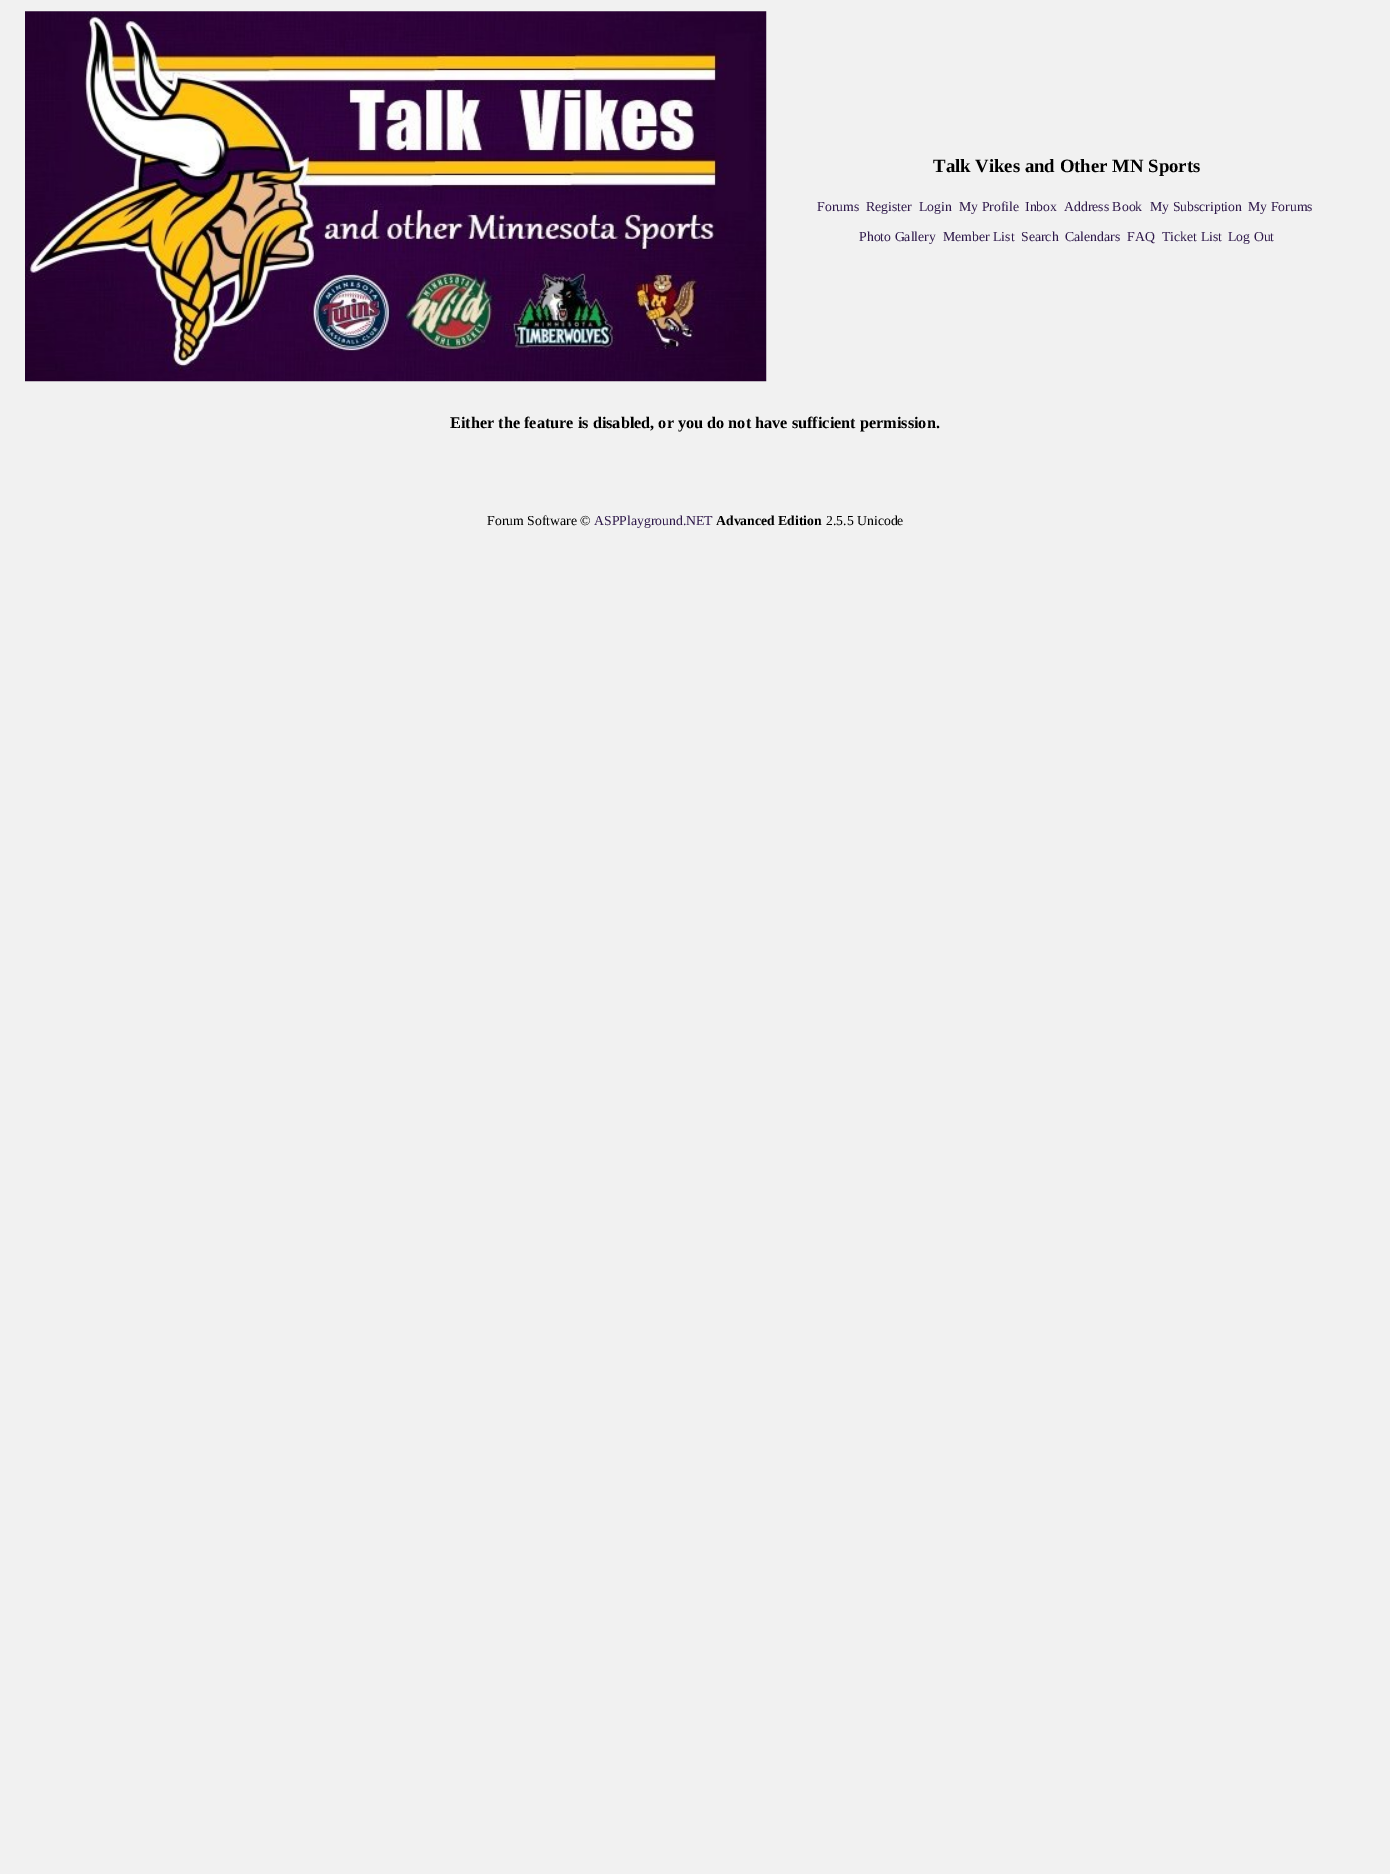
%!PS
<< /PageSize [1390 1874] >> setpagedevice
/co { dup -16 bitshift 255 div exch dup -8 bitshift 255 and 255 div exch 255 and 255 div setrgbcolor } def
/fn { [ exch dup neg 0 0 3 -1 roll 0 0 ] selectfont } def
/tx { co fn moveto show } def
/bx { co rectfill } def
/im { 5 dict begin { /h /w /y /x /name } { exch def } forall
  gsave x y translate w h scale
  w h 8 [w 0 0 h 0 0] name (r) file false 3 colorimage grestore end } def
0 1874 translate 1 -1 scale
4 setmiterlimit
0 0 1390 1874 16#F1F1F1 bx
(media/1.raw) 25 11 742 371 im
(Talk Vikes and Other MN Sports) 933 172 /LiberationSerif-Bold 18.75 16#000000 tx
(Forums) 817 211 /LiberationSerif-Regular 13.75 16#301A4B tx
(Register) 866 211 /LiberationSerif-Regular 13.75 16#301A4B tx
(Login) 919 211 /LiberationSerif-Regular 13.75 16#301A4B tx
(My Profile) 959 211 /LiberationSerif-Regular 13.75 16#301A4B tx
(Inbox) 1025 211 /LiberationSerif-Regular 13.75 16#301A4B tx
(Address Book) 1064 211 /LiberationSerif-Regular 13.75 16#301A4B tx
(My Subscription) 1150 211 /LiberationSerif-Regular 13.75 16#301A4B tx
(My Forums) 1248 211 /LiberationSerif-Regular 13.75 16#301A4B tx
(Photo Gallery) 859 241 /LiberationSerif-Regular 13.75 16#301A4B tx
(Member List) 943 241 /LiberationSerif-Regular 13.75 16#301A4B tx
(Search) 1021 241 /LiberationSerif-Regular 13.75 16#301A4B tx
(Calendars) 1065 241 /LiberationSerif-Regular 13.75 16#301A4B tx
(FAQ) 1127 241 /LiberationSerif-Regular 13.75 16#301A4B tx
(Ticket List) 1162 241 /LiberationSerif-Regular 13.75 16#301A4B tx
(Log Out) 1228 241 /LiberationSerif-Regular 13.75 16#301A4B tx
(Either the feature is disabled, or you do not have sufficient permission.) 450 428 /LiberationSerif-Bold 16.25 16#000000 tx
(Forum Software ©) 487 525 /LiberationSerif-Regular 13.75 16#000000 tx
(ASPPlayground.NET) 594 525 /LiberationSerif-Regular 13.75 16#301A4B tx
(Advanced Edition) 716 525 /LiberationSerif-Bold 13.75 16#000000 tx
(2.5.5 Unicode) 826 525 /LiberationSerif-Regular 13.75 16#000000 tx
showpage
